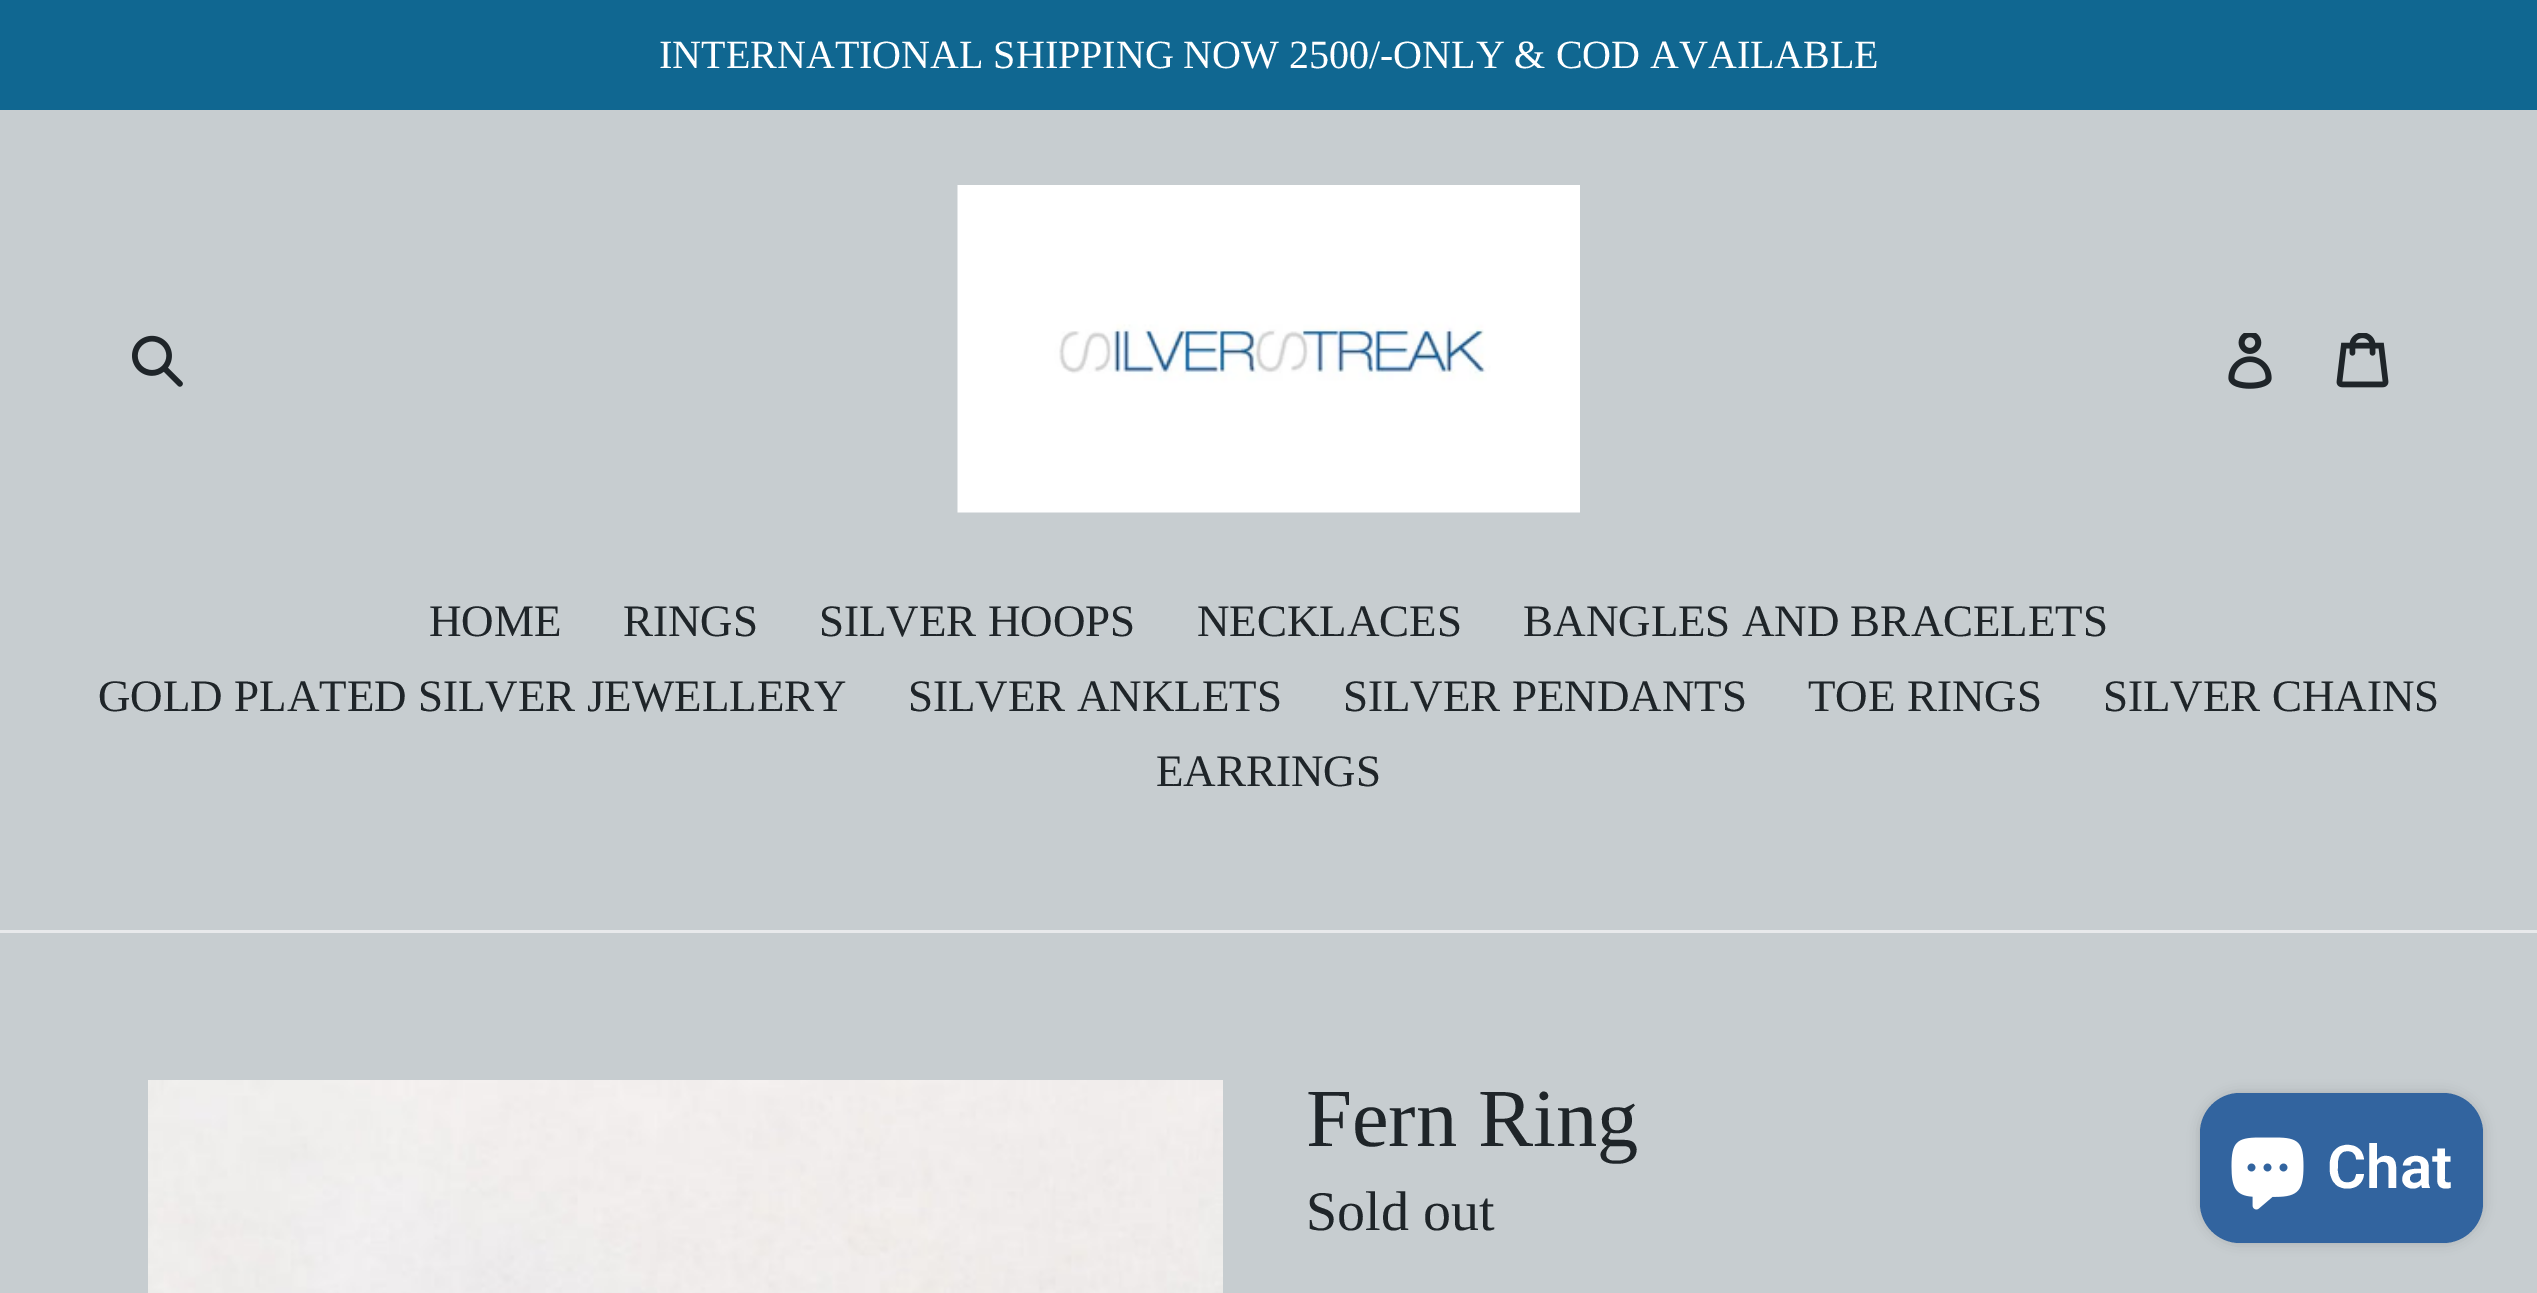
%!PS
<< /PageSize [2537 1293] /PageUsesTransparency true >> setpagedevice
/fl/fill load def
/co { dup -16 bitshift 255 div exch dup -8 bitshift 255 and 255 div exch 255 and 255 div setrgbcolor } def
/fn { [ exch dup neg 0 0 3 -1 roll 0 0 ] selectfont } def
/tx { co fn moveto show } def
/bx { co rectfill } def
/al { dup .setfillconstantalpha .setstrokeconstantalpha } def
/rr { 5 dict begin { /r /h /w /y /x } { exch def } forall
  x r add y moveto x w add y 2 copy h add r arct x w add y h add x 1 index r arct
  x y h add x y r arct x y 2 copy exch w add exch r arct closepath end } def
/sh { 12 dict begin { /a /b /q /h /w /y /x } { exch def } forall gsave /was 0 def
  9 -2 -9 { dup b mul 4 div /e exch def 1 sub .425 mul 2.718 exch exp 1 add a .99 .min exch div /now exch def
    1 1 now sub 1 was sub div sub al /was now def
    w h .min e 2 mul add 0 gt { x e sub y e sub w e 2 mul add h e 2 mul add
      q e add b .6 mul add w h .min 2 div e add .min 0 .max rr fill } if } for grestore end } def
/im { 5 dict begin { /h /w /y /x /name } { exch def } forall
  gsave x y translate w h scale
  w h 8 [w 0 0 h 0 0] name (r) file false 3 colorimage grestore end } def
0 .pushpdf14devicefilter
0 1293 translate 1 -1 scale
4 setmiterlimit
0 0 2537 1293 16#C7CDD0 bx
0 0 2537 110 16#106791 bx
(media/1.raw) 132 335 51 52 im
(media/2.raw) 957 185 623 328 im
(media/3.raw) 2228 333 44 56 im
(media/4.raw) 2336 333 53 55 im
0 930 2537 3 16#E8E9EB bx
(media/5.raw) 148 1080 1075 213 im
16#000000 co
2200 1093 283 150 40 6 .15 sh
16#32649F co
2200 1093 283 150 40 rr fl
(media/6.raw) 2231 1137 73 73 im
(INTERNATIONAL SHIPPING NOW 2500/-ONLY & COD AVAILABLE) 659 68 /LiberationSerif-Regular 40 16#FFFFFF tx
(HOME) 429 636 /LiberationSerif-Regular 45 16#1F2529 tx
(RINGS) 623 636 /LiberationSerif-Regular 45 16#1F2529 tx
(SILVER HOOPS) 819 636 /LiberationSerif-Regular 45 16#1F2529 tx
(NECKLACES) 1197 636 /LiberationSerif-Regular 45 16#1F2529 tx
(BANGLES AND BRACELETS) 1523 636 /LiberationSerif-Regular 45 16#1F2529 tx
(GOLD PLATED SILVER JEWELLERY) 98 711 /LiberationSerif-Regular 45 16#1F2529 tx
(SILVER ANKLETS) 908 711 /LiberationSerif-Regular 45 16#1F2529 tx
(SILVER PENDANTS) 1343 711 /LiberationSerif-Regular 45 16#1F2529 tx
(TOE RINGS) 1808 711 /LiberationSerif-Regular 45 16#1F2529 tx
(SILVER CHAINS) 2103 711 /LiberationSerif-Regular 45 16#1F2529 tx
(EARRINGS) 1156 786 /LiberationSerif-Regular 45 16#1F2529 tx
(Fern Ring) 1306 1146 /LiberationSerif-Regular 82.5 16#1F2529 tx
(Sold out) 1306 1230 /LiberationSerif-Regular 56 16#1F2529 tx
(Chat) 2327 1188 /Roboto-SemiBold 60 16#FFFFFF tx
.poppdf14devicefilter showpage
